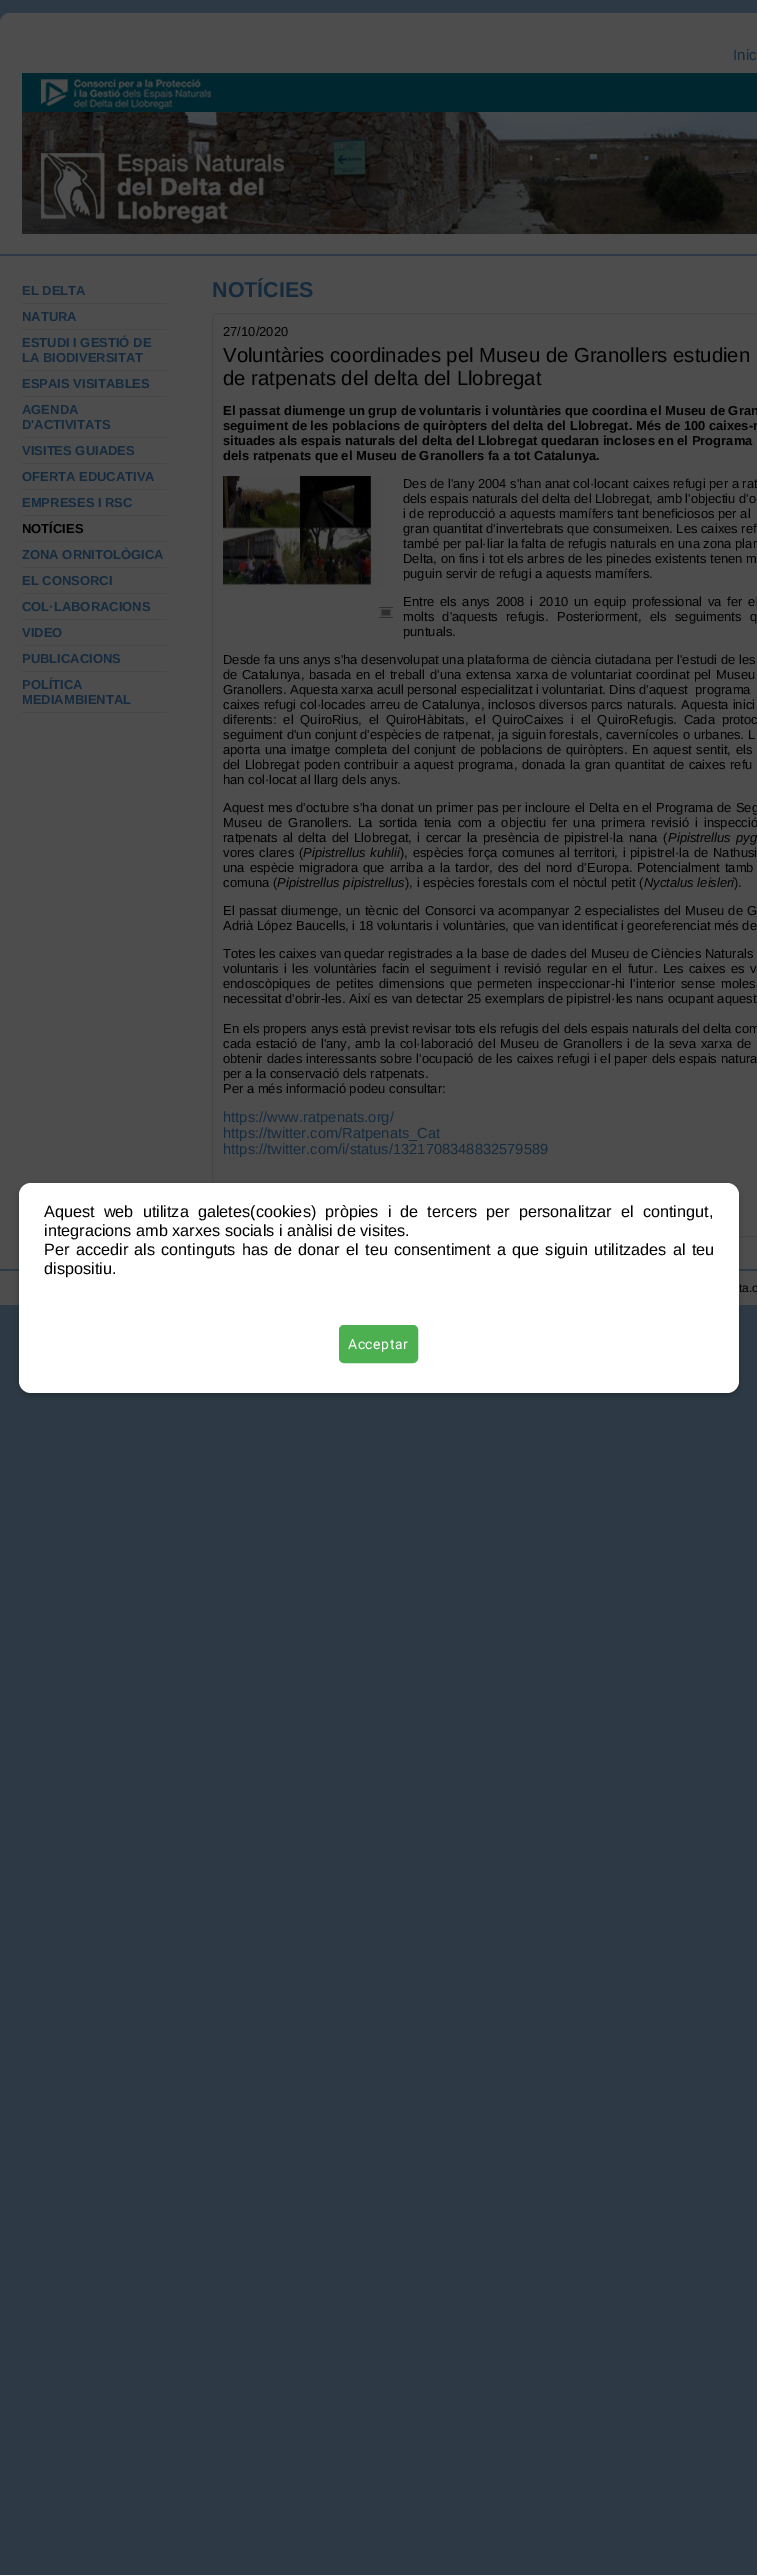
%!PS
<< /PageSize [757 2575] /PageUsesTransparency true >> setpagedevice
/mt/moveto load def
/li/lineto load def
/ct/curveto load def
/cp/closepath load def
/fl/fill load def
/st/stroke load def
/gs/gsave load def
/gr/grestore load def
/lw/setlinewidth load def
/co { dup -16 bitshift 255 div exch dup -8 bitshift 255 and 255 div exch 255 and 255 div setrgbcolor } def
/fn { [ exch dup neg 0 0 3 -1 roll 0 0 ] selectfont } def
/tx { co fn moveto show } def
/bx { co rectfill } def
/al { dup .setfillconstantalpha .setstrokeconstantalpha } def
/rr { 5 dict begin { /r /h /w /y /x } { exch def } forall
  x r add y moveto x w add y 2 copy h add r arct x w add y h add x 1 index r arct
  x y h add x y r arct x y 2 copy exch w add exch r arct closepath end } def
/sh { 12 dict begin { /a /b /q /h /w /y /x } { exch def } forall gsave /was 0 def
  9 -2 -9 { dup b mul 4 div /e exch def 1 sub .425 mul 2.718 exch exp 1 add a .99 .min exch div /now exch def
    1 1 now sub 1 was sub div sub al /was now def
    w h .min e 2 mul add 0 gt { x e sub y e sub w e 2 mul add h e 2 mul add
      q e add b .6 mul add w h .min 2 div e add .min 0 .max rr fill } if } for grestore end } def
/im { 5 dict begin { /h /w /y /x /name } { exch def } forall
  gsave x y translate w h scale
  w h 8 [w 0 0 h 0 0] name (r) file false 3 colorimage grestore end } def
0 .pushpdf14devicefilter
0 2575 translate 1 -1 scale
4 setmiterlimit
0 0 757 2575 16#2D3944 bx
16#4D4D4D co
10 13 mt 757 13 li 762.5 13 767 17.5 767 23 ct 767 254 li 0 254 li 0 23 li 0 17.5 4.5 13 10 13 ct cp fl
(media/1.raw) 22 73 735 161 im
0 256 757 1013 16#4D4D4D bx
22 303 145 1 16#464646 bx
22 329 145 1 16#464646 bx
22 370 145 1 16#464646 bx
22 396 145 1 16#464646 bx
22 437 145 1 16#464646 bx
22 463 145 1 16#464646 bx
22 489 145 1 16#464646 bx
22 515 145 1 16#464646 bx
22 541 145 1 16#464646 bx
22 567 145 1 16#464646 bx
22 593 145 1 16#464646 bx
22 619 145 1 16#464646 bx
22 645 145 1 16#464646 bx
22 671 145 1 16#464646 bx
22 712 145 1 16#464646 bx
212.5 313.5 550 923 4.5 rr st
(media/2.raw) 223 476 160 113 im
(media/3.raw) 379 607 14 11 im
0 1271 757 34 16#4D4D4D bx
16#000000 co
19 1186 720 210 12 3 .23 sh
16#FFFFFF co
19 1183 720 210 12 rr fl
16#4CAF50 co
340 1326 77 36 4 rr gs fl gr
2 lw
st
(Inic) 733 60 /LiberationSans-Regular 15 16#152A3D tx
(EL DELTA) 22 295 /LiberationSans-Bold 13 16#152A3D tx
(NATURA) 22 321 /LiberationSans-Bold 13 16#152A3D tx
(ESTUDI I GESTIÓ DE) 22 347 /LiberationSans-Bold 13 16#152A3D tx
(LA BIODIVERSITAT) 22 362 /LiberationSans-Bold 13 16#152A3D tx
(ESPAIS VISITABLES) 22 388 /LiberationSans-Bold 13 16#152A3D tx
(AGENDA) 22 414 /LiberationSans-Bold 13 16#152A3D tx
(D'ACTIVITATS) 22 429 /LiberationSans-Bold 13 16#152A3D tx
(VISITES GUIADES) 22 455 /LiberationSans-Bold 13 16#152A3D tx
(OFERTA EDUCATIVA) 22 481 /LiberationSans-Bold 13 16#152A3D tx
(EMPRESES I RSC) 22 507 /LiberationSans-Bold 13 16#152A3D tx
(NOTÍCIES) 22 533 /LiberationSans-Bold 13 16#000000 tx
(ZONA ORNITOLÒGICA) 22 559 /LiberationSans-Bold 13 16#152A3D tx
(EL CONSORCI) 22 585 /LiberationSans-Bold 13 16#152A3D tx
(COL·LABORACIONS) 22 611 /LiberationSans-Bold 13 16#152A3D tx
(VIDEO) 22 637 /LiberationSans-Bold 13 16#152A3D tx
(PUBLICACIONS) 22 663 /LiberationSans-Bold 13 16#152A3D tx
(POLÍTICA) 22 689 /LiberationSans-Bold 13 16#152A3D tx
(MEDIAMBIENTAL) 22 704 /LiberationSans-Bold 13 16#152A3D tx
(NOTÍCIES) 212 297 /LiberationSans-Bold 21.5 16#152A3D tx
(27/10/2020) 223 336 /LiberationSans-Regular 13 16#000000 tx
(Voluntàries coordinades pel Museu de Granollers estudien) 223 362 /LiberationSans-Regular 20.3 16#000000 tx
(de ratpenats del delta del Llobregat) 223 385 /LiberationSans-Regular 20.3 16#000000 tx
(El passat diumenge un grup de voluntaris i voluntàries que coordina el Museu de Gran) 223 415 /LiberationSans-Bold 13 16#000000 tx
(seguiment de les poblacions de quiròpters del delta del Llobregat. Més de 100 caixes-r) 223 430 /LiberationSans-Bold 13 16#000000 tx
(situades als espais naturals del delta del Llobregat quedaran incloses en el Programa) 223 445 /LiberationSans-Bold 13 16#000000 tx
(dels ratpenats que el Museu de Granollers fa a tot Catalunya.) 223 460 /LiberationSans-Bold 13 16#000000 tx
(Des de l'any 2004 s'han anat col·locant caixes refugi per a rat) 403 488 /LiberationSans-Regular 13 16#000000 tx
(dels espais naturals del delta del Llobregat, amb l'objectiu d'o) 403 503 /LiberationSans-Regular 13 16#000000 tx
(i de reproducció a aquests mamífers tant beneficiosos per al) 403 518 /LiberationSans-Regular 13 16#000000 tx
(gran quantitat d'invertebrats que consumeixen. Les caixes ref) 403 533 /LiberationSans-Regular 13 16#000000 tx
(també per pal·liar la falta de refugis naturals en una zona plan) 403 548 /LiberationSans-Regular 13 16#000000 tx
(Delta, on fins i tot els arbres de les pinedes existents tenen m) 403 563 /LiberationSans-Regular 13 16#000000 tx
(puguin servir de refugi a aquests mamífers.) 403 578 /LiberationSans-Regular 13 16#000000 tx
403 606 mt 2.25 0 32 (Entre els anys 2008 i 2010 un equip professional va fer el) widthshow
403 621 mt 4.75 0 32 (molts d'aquests refugis. Posteriorment, els seguiments q) widthshow
(puntuals.) 403 636 /LiberationSans-Regular 13 16#000000 tx
(Desde fa uns anys s'ha desenvolupat una plataforma de ciència ciutadana per l'estudi de les) 223 664 /LiberationSans-Regular 13 16#000000 tx
223 679 mt 1 0 32 (de Catalunya, basada en el treball d'una extensa xarxa de voluntariat coordinat pel Museu) widthshow
(Granollers. Aquesta xarxa acull personal especialitzat i voluntariat. Dins d'aquest  programa) 223 694 /LiberationSans-Regular 13 16#000000 tx
223 709 mt .25 0 32 (caixes refugi col·locades arreu de Catalunya, inclosos diversos parcs naturals.) widthshow
681 709 mt .25 0 32 (Aquesta inici) widthshow
223 724 mt 3.25 0 32 (diferents: el QuiroRius, el QuiroHàbitats, el QuiroCaixes i el QuiroRefugis. Cada protoc) widthshow
223 739 mt .1 0 32 (seguiment d'un conjunt d'espècies de ratpenat, ja siguin forestals, cavernícoles o urbanes. L) widthshow
223 754 mt 1.1 0 32 (aporta una imatge completa del conjunt de poblacions de quiròpters. En aquest sentit, els) widthshow
223 769 mt 1 0 32 (del Llobregat poden contribuir a aquest programa, donada la gran quantitat de caixes refu) widthshow
(han col·locat al llarg dels anys.) 223 784 /LiberationSans-Regular 13 16#000000 tx
223 812 mt .5 0 32 (Aquest mes d'octubre s'ha donat un primer pas per incloure el Delta en el Programa de Seg) widthshow
223 827 mt 2.4 0 32 (Museu de Granollers. La sortida tenia com a objectiu fer una primera revisió i inspecció) widthshow
223 842 mt 1.75 0 32 (ratpenats al delta del Llobregat, i cercar la presència de pipistrel·la nana \() widthshow
/LiberationSans-Italic 13 fn
668 842 mt 1.75 0 32 (Pipistrellus pyg) widthshow
/LiberationSans-Regular 13 fn
223 857 mt 1 0 32 (vores clares \() widthshow
/LiberationSans-Italic 13 fn
303 857 mt 1 0 32 (Pipistrellus kuhlii) widthshow
/LiberationSans-Regular 13 fn
400 857 mt 1 0 32 (\), espècies força comunes al territori, i pipistrel·la de Nathusi) widthshow
223 872 mt 1.4 0 32 (una espècie migradora que arriba a la tardor, des del nord d'Europa. Potencialment tamb) widthshow
(comuna \() 223 887 /LiberationSans-Regular 13 16#000000 tx
(Pipistrellus pipistrellus) 277 887 /LiberationSans-Italic 13 16#000000 tx
(\), i espècies forestals com el nòctul petit \() 405 887 /LiberationSans-Regular 13 16#000000 tx
(Nyctalus leisleri) 644 887 /LiberationSans-Italic 13 16#000000 tx
(\).) 734 887 /LiberationSans-Regular 13 16#000000 tx
223 915 mt .6 0 32 (El passat diumenge, un tècnic del Consorci va acompanyar 2 especialistes del Museu de G) widthshow
(Adrià López Baucells, i 18 voluntaris i voluntàries, que van identificat i georeferenciat més de) 223 930 /LiberationSans-Regular 13 16#000000 tx
(Totes les caixes van quedar registrades a la base de dades del Museu de Ciències Naturals) 223 958 /LiberationSans-Regular 13 16#000000 tx
223 973 mt 1.7 0 32 (voluntaris i les voluntàries facin el seguiment i revisió regular en el futur. Les caixes es v) widthshow
223 988 mt 1.75 0 32 (endoscòpiques de petites dimensions que permeten inspeccionar-hi l'interior sense moles) widthshow
(necessitat d'obrir-les. Així es van detectar 25 exemplars de pipistrel·les nans ocupant aquest) 223 1003 /LiberationSans-Regular 13 16#000000 tx
223 1033 mt .1 0 32 (En els propers anys està previst revisar tots els refugis del dels espais naturals del delta com) widthshow
223 1048 mt 1 0 32 (cada estació de l'any, amb la col·laboració del Museu de Granollers i de la seva xarxa de) widthshow
223 1063 mt .3 0 32 (obtenir dades interessants sobre l'ocupació de les caixes refugi i el paper dels espais natura) widthshow
(per a la conservació dels ratpenats.) 223 1078 /LiberationSans-Regular 13 16#000000 tx
(Per a més informació podeu consultar:) 223 1093 /LiberationSans-Regular 13 16#000000 tx
(https://www.ratpenats.org/) 223 1122 /LiberationSans-Regular 14.7 16#152A3D tx
(https://twitter.com/Ratpenats_Cat) 223 1138 /LiberationSans-Regular 14.7 16#152A3D tx
(https://twitter.com/i/status/1321708348832579589) 223 1154 /LiberationSans-Regular 14.7 16#152A3D tx
(ta.o) 739 1292 /LiberationSans-Regular 12 16#000000 tx
/LiberationSans-Regular 16.25 fn
44 1217 mt 4.6 0 32 (Aquest web utilitza galetes\(cookies\) pròpies i de tercers per personalitzar el contingut,) widthshow
(integracions amb xarxes socials i anàlisi de visites.) 44 1236 /LiberationSans-Regular 16.25 16#000000 tx
44 1255 mt 1.75 0 32 (Per accedir als continguts has de donar el teu consentiment a que siguin utilitzades al teu) widthshow
(dispositiu.) 44 1274 /LiberationSans-Regular 16.25 16#000000 tx
/Roboto-Regular 14 fn
16#FFFFFF co
348 1349 mt .5 0 (Acceptar) ashow
.poppdf14devicefilter showpage
